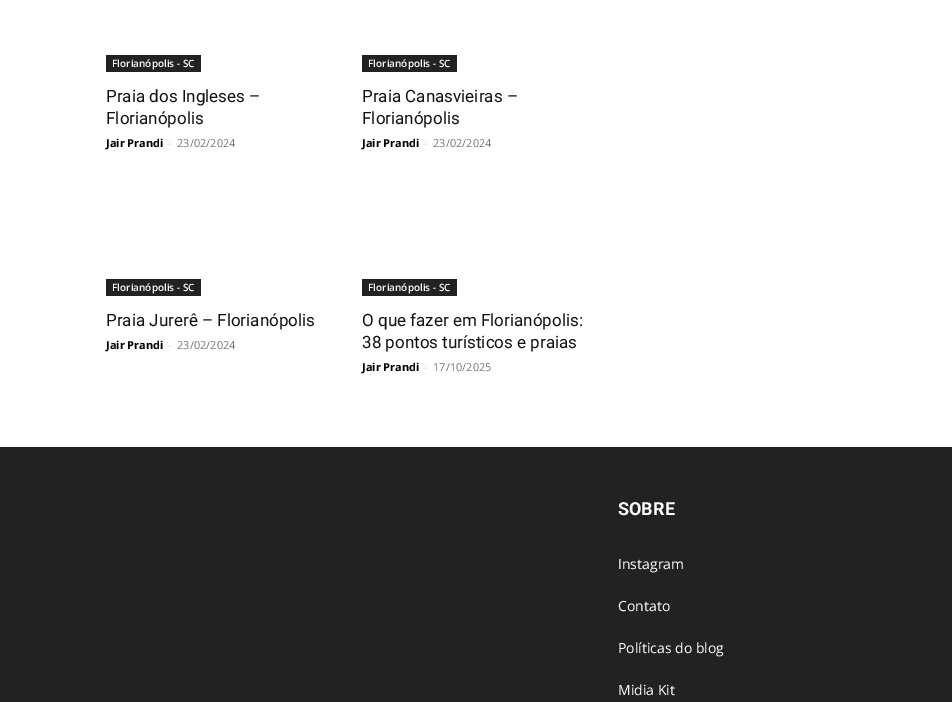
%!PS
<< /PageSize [952 702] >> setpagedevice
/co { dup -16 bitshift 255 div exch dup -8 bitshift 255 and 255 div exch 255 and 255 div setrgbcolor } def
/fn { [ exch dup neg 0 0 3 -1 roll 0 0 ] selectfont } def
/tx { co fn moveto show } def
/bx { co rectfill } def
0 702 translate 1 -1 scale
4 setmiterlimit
0 0 952 702 16#FFFFFF bx
106 55 95 17 16#222222 bx
362 55 95 17 16#222222 bx
106 279 95 17 16#222222 bx
362 279 95 17 16#222222 bx
0 447 952 255 16#222222 bx
(Florianópolis - SC) 112 67 /OpenSans-SemiBold 10 16#FFFFFF tx
(Praia dos Ingleses –) 106 102 /Roboto-Regular 17 16#111111 tx
(Florianópolis) 106 124 /Roboto-Regular 17 16#111111 tx
(Jair Prandi) 106 147 /OpenSans-Bold 11 16#000000 tx
(-) 168 147 /OpenSans-Regular 11 16#CCCCCC tx
(23/02/2024) 177 147 /OpenSans-Regular 11 16#767676 tx
(Florianópolis - SC) 368 67 /OpenSans-SemiBold 10 16#FFFFFF tx
(Praia Canasvieiras –) 362 102 /Roboto-Regular 17 16#111111 tx
(Florianópolis) 362 124 /Roboto-Regular 17 16#111111 tx
(Jair Prandi) 362 147 /OpenSans-Bold 11 16#000000 tx
(-) 424 147 /OpenSans-Regular 11 16#CCCCCC tx
(23/02/2024) 433 147 /OpenSans-Regular 11 16#767676 tx
(Florianópolis - SC) 112 291 /OpenSans-SemiBold 10 16#FFFFFF tx
(Praia Jurerê – Florianópolis) 106 326 /Roboto-Regular 17 16#111111 tx
(Jair Prandi) 106 349 /OpenSans-Bold 11 16#000000 tx
(-) 168 349 /OpenSans-Regular 11 16#CCCCCC tx
(23/02/2024) 177 349 /OpenSans-Regular 11 16#767676 tx
(Florianópolis - SC) 368 291 /OpenSans-SemiBold 10 16#FFFFFF tx
(O que fazer em Florianópolis:) 362 326 /Roboto-Regular 17 16#111111 tx
(38 pontos turísticos e praias) 362 348 /Roboto-Regular 17 16#111111 tx
(Jair Prandi) 362 371 /OpenSans-Bold 11 16#000000 tx
(-) 424 371 /OpenSans-Regular 11 16#CCCCCC tx
(17/10/2025) 433 371 /OpenSans-Regular 11 16#767676 tx
(SOBRE) 618 515 /Roboto-Bold 18 16#FFFFFF tx
(Instagram) 618 569 /OpenSans-Regular 14 16#FFFFFF tx
(Contato) 618 611 /OpenSans-Regular 14 16#FFFFFF tx
(Políticas do blog) 618 653 /OpenSans-Regular 14 16#FFFFFF tx
(Midia Kit) 618 695 /OpenSans-Regular 14 16#FFFFFF tx
showpage
